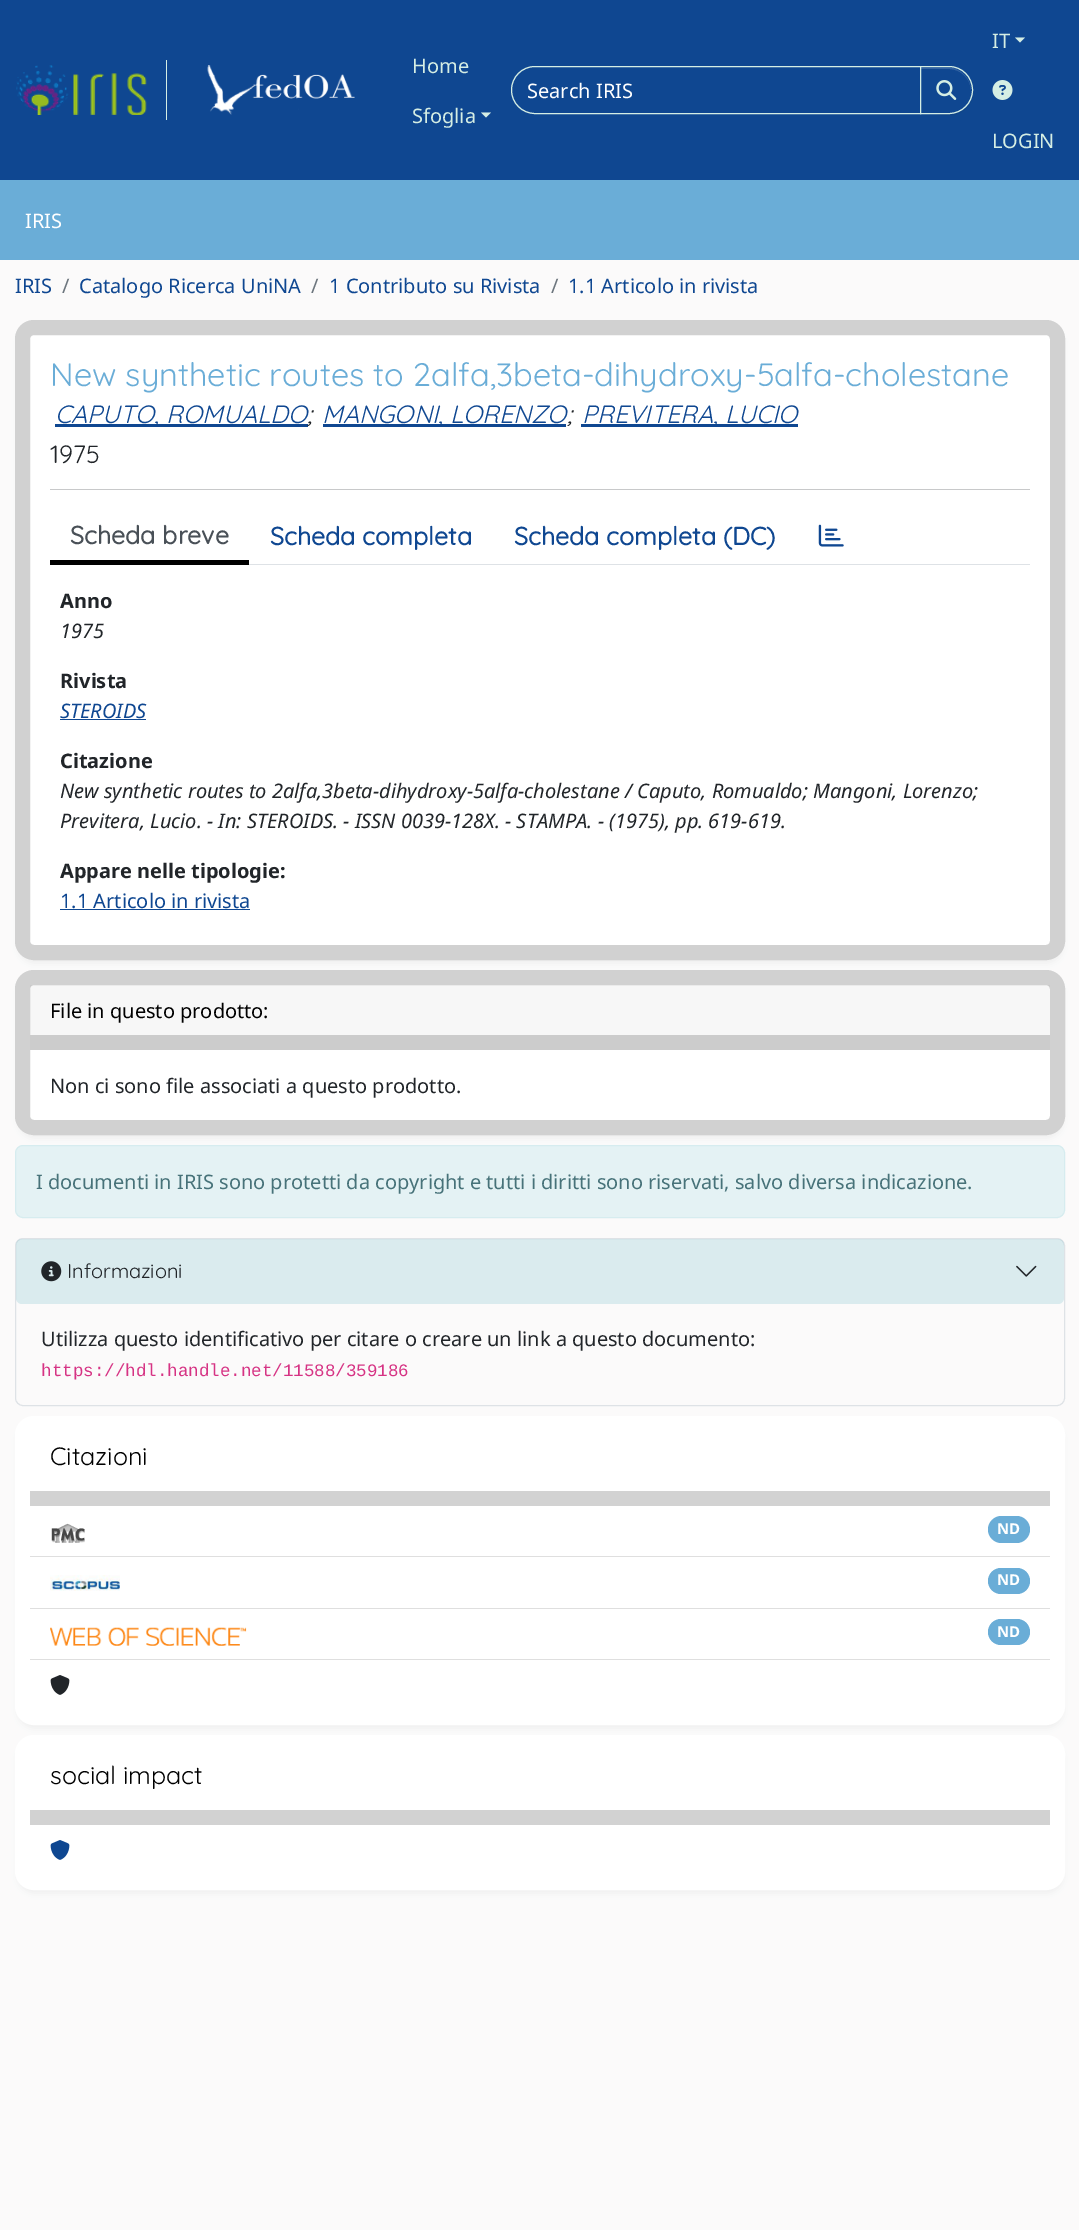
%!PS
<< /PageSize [1079 2230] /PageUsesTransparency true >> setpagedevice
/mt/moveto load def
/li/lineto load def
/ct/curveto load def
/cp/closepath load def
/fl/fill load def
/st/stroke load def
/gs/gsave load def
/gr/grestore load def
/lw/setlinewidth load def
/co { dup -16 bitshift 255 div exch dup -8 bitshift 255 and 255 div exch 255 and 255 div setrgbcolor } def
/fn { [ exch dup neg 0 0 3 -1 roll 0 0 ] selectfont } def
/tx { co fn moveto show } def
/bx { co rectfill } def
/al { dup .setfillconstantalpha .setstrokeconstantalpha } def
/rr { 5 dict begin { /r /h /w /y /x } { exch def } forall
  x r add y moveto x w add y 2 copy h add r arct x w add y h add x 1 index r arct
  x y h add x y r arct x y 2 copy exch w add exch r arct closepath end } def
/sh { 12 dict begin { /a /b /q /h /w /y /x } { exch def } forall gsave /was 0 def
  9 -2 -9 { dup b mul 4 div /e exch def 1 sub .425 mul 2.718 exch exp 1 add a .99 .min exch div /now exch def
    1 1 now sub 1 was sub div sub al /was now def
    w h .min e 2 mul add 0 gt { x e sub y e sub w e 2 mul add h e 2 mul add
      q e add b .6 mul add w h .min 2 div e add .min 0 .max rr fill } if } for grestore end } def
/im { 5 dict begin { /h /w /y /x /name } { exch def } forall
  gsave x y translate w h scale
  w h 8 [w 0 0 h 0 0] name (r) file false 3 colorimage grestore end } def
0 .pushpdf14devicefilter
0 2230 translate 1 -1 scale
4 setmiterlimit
0 0 1079 2230 16#FBFAFA bx
0 0 1079 180 16#0F4791 bx
166 60 1 60 16#D5EEE4 bx
(media/1.raw) 16 65 131 50 im
(media/2.raw) 207 65 148 50 im
481 112.5 mt 491 112.5 li 486 117.5 li cp fl
535 66.5 mt 920.5 66.5 li 920.5 113.5 li 535 113.5 li 522 113.5 511.5 103 511.5 90 ct 511.5 77 522 66.5 535 66.5 ct cp st
16#000000 co
920 68 53 47 23.5 .5 .07 sh
16#0F4791 co
920 66 mt 949 66 li 962.5 66 973 76.5 973 90 ct 973 103.5 962.5 114 949 114 ct 920 114 li cp fl
16#3363A2 co
921 69 mt 949 69 li 961 69 971 79 971 91 ct 971 80 963 71 953 68 ct 921 68 li cp fl
16#D5EEE4 co
920.5 66.5 mt 949 66.5 li 962 66.5 972.5 77 972.5 90 ct 972.5 103 962 113.5 949 113.5 ct 920.5 113.5 li cp st
(media/3.raw) 936 80 21 20 im
1015 37.5 mt 1025 37.5 li 1020 42.5 li cp fl
(media/4.raw) 992 80 21 20 im
0 180 1079 80 16#6AADD7 bx
16#EEEEEE co
18 328 1045 635 16 4 1 sh
16#FFFFFF co
15 320 1050 640 19 rr fl
0.18 al
16#000000 co
15 lw
22.5 327.5 1035 625 11.5 rr st
1 al
55 424 253 3 16#0F4791 bx
323 424 243 3 16#0F4791 bx
581 424 217 3 16#0F4791 bx
50 489 980 1 16#C8C9CA bx
249 564 781 1 16#DEE2E6 bx
50 560 199 5 16#000000 bx
(media/5.raw) 818 524 26 23 im
60 719 86 1 16#0F4791 bx
60 909 190 1 16#0F4791 bx
16#EEEEEE co
18 978 1045 160 16 4 1 sh
16#FFFFFF co
15 970 1050 165 19 rr fl
0.18 al
16#000000 co
22.5 977.5 1035 150 11.5 rr st
0.03 al
30 985 1020 50 16#000000 bx
1 al
30 1035 1020 15 16#CCCCCC bx
16#E4F2F4 co
15.5 1145.5 1049 72 7.5 rr gs fl gr
16#D6ECEF co
1 lw
st
16#DEE2E6 co
15.5 1238.5 1049 167 7.5 rr st
0.25 al
16#77BECA co
16 1239 1048 65 6 rr fl
1 al
(media/6.raw) 41 1261 21 21 im
(media/7.raw) 1016 1265 21 12 im
16#EEEEEE co
18 1424 1045 304 16 4 1 sh
16#FFFFFF co
22.5 1423.5 1035 294 11.5 rr gs fl gr
15 lw
st
30 1491 1020 15 16#D2D2D2 bx
30 1556 1020 1 16#DFDFDF bx
(media/8.raw) 51 1523 34 20 im
16#6AADD7 co
988 1516 42 27 13.5 rr fl
30 1608 1020 1 16#DFDFDF bx
(media/9.raw) 50 1575 70 16 im
16#6AADD7 co
988 1568 42 26 13 rr fl
30 1659 1020 1 16#DFDFDF bx
(media/10.raw) 50 1627 197 19 im
16#6AADD7 co
988 1619 42 26 13 rr fl
(media/11.raw) 50 1675 20 20 im
16#EEEEEE co
18 1743 1045 150 16 4 1 sh
16#FFFFFF co
22.5 1742.5 1035 140 11.5 rr gs fl gr
st
30 1810 1020 15 16#D2D2D2 bx
(media/12.raw) 50 1840 20 20 im
(Home) 412 73 /NotoSans-Regular 20 16#D5EEE4 tx
(Sfoglia) 412 123 /NotoSans-Regular 20 16#D5EEE4 tx
(Search IRIS) 527 98 /NotoSans-Regular 20 16#FFFFFF tx
(IT) 992 48 /NotoSans-Regular 20 16#D5EEE4 tx
(LOGIN) 992 148 /NotoSans-Regular 20 16#D5EEE4 tx
(IRIS) 25 228 /NotoSans-Regular 20 16#FFFFFF tx
(IRIS) 15 293 /NotoSans-Regular 20 16#0F4791 tx
(/) 62 293 /NotoSans-Regular 20 16#6C757D tx
(Catalogo Ricerca UniNA) 79 293 /NotoSans-Regular 20 16#0F4791 tx
(/) 311 293 /NotoSans-Regular 20 16#6C757D tx
(1 Contributo su Rivista) 329 293 /NotoSans-Regular 20 16#0F4791 tx
(/) 551 293 /NotoSans-Regular 20 16#6C757D tx
(1.1 Articolo in rivista) 568 293 /NotoSans-Regular 20 16#0F4791 tx
(New synthetic routes to 2alfa,3beta-dihydroxy-5alfa-cholestane) 50 386 /Quicksand-Light 32.5 16#6AADD7 tx
(CAPUTO, ROMUALDO) 55 423 /Quicksand-LightItalic 25 16#0F4791 tx
(;) 307 423 /Quicksand-LightItalic 25 16#212529 tx
(MANGONI, LORENZO) 322 423 /Quicksand-LightItalic 25 16#0F4791 tx
(;) 567 423 /Quicksand-LightItalic 25 16#212529 tx
(PREVITERA, LUCIO) 582 423 /Quicksand-LightItalic 25 16#0F4791 tx
(1975) 50 463 /Quicksand-Light 25 16#212529 tx
(Scheda breve) 70 544 /Quicksand-Bold 25 16#495057 tx
(Scheda completa) 270 545 /Quicksand-Bold 25 16#0F4791 tx
(Scheda completa \(DC\)) 514 545 /Quicksand-Bold 25 16#0F4791 tx
(Anno) 60 608 /NotoSans-Bold 20 16#212529 tx
(1975) 60 638 /NotoSans-Italic 20 16#212529 tx
(Rivista) 60 688 /NotoSans-Bold 20 16#212529 tx
(STEROIDS) 60 718 /NotoSans-Italic 20 16#0F4791 tx
(Citazione) 60 768 /NotoSans-Bold 20 16#212529 tx
(New synthetic routes to 2alfa,3beta-dihydroxy-5alfa-cholestane / Caputo, Romualdo; Mangoni, Lorenzo;) 60 798 /NotoSans-Italic 20 16#212529 tx
(Previtera, Lucio. - In: STEROIDS. - ISSN 0039-128X. - STAMPA. - \(1975\), pp. 619-619.) 60 828 /NotoSans-Italic 20 16#212529 tx
(Appare nelle tipologie:) 60 878 /NotoSans-Bold 20 16#212529 tx
(1.1 Articolo in rivista) 60 908 /NotoSans-Regular 20 16#0F4791 tx
(File in questo prodotto:) 50 1018 /NotoSans-Regular 20 16#000000 tx
(Non ci sono file associati a questo prodotto.) 50 1093 /NotoSans-Regular 20 16#212529 tx
(I documenti in IRIS sono protetti da copyright e tutti i diritti sono riservati, salvo diversa indicazione.) 36 1189 /NotoSans-Regular 20 16#477279 tx
(Informazioni) 67 1278 /Quicksand-Light 20 16#212529 tx
(Utilizza questo identificativo per citare o creare un link a questo documento:) 41 1346 /NotoSans-Regular 20 16#212529 tx
(https://hdl.handle.net/11588/359186) 41 1376 /LiberationMono-Regular 17.5 16#D63384 tx
(Citazioni) 50 1465 /Quicksand-Light 25 16#000000 tx
(ND) 997 1534 /NotoSans-Bold 15 16#FFFFFF tx
(ND) 997 1585 /NotoSans-Bold 15 16#FFFFFF tx
(ND) 997 1637 /NotoSans-Bold 15 16#FFFFFF tx
(social impact) 50 1784 /Quicksand-Light 25 16#000000 tx
.poppdf14devicefilter showpage
